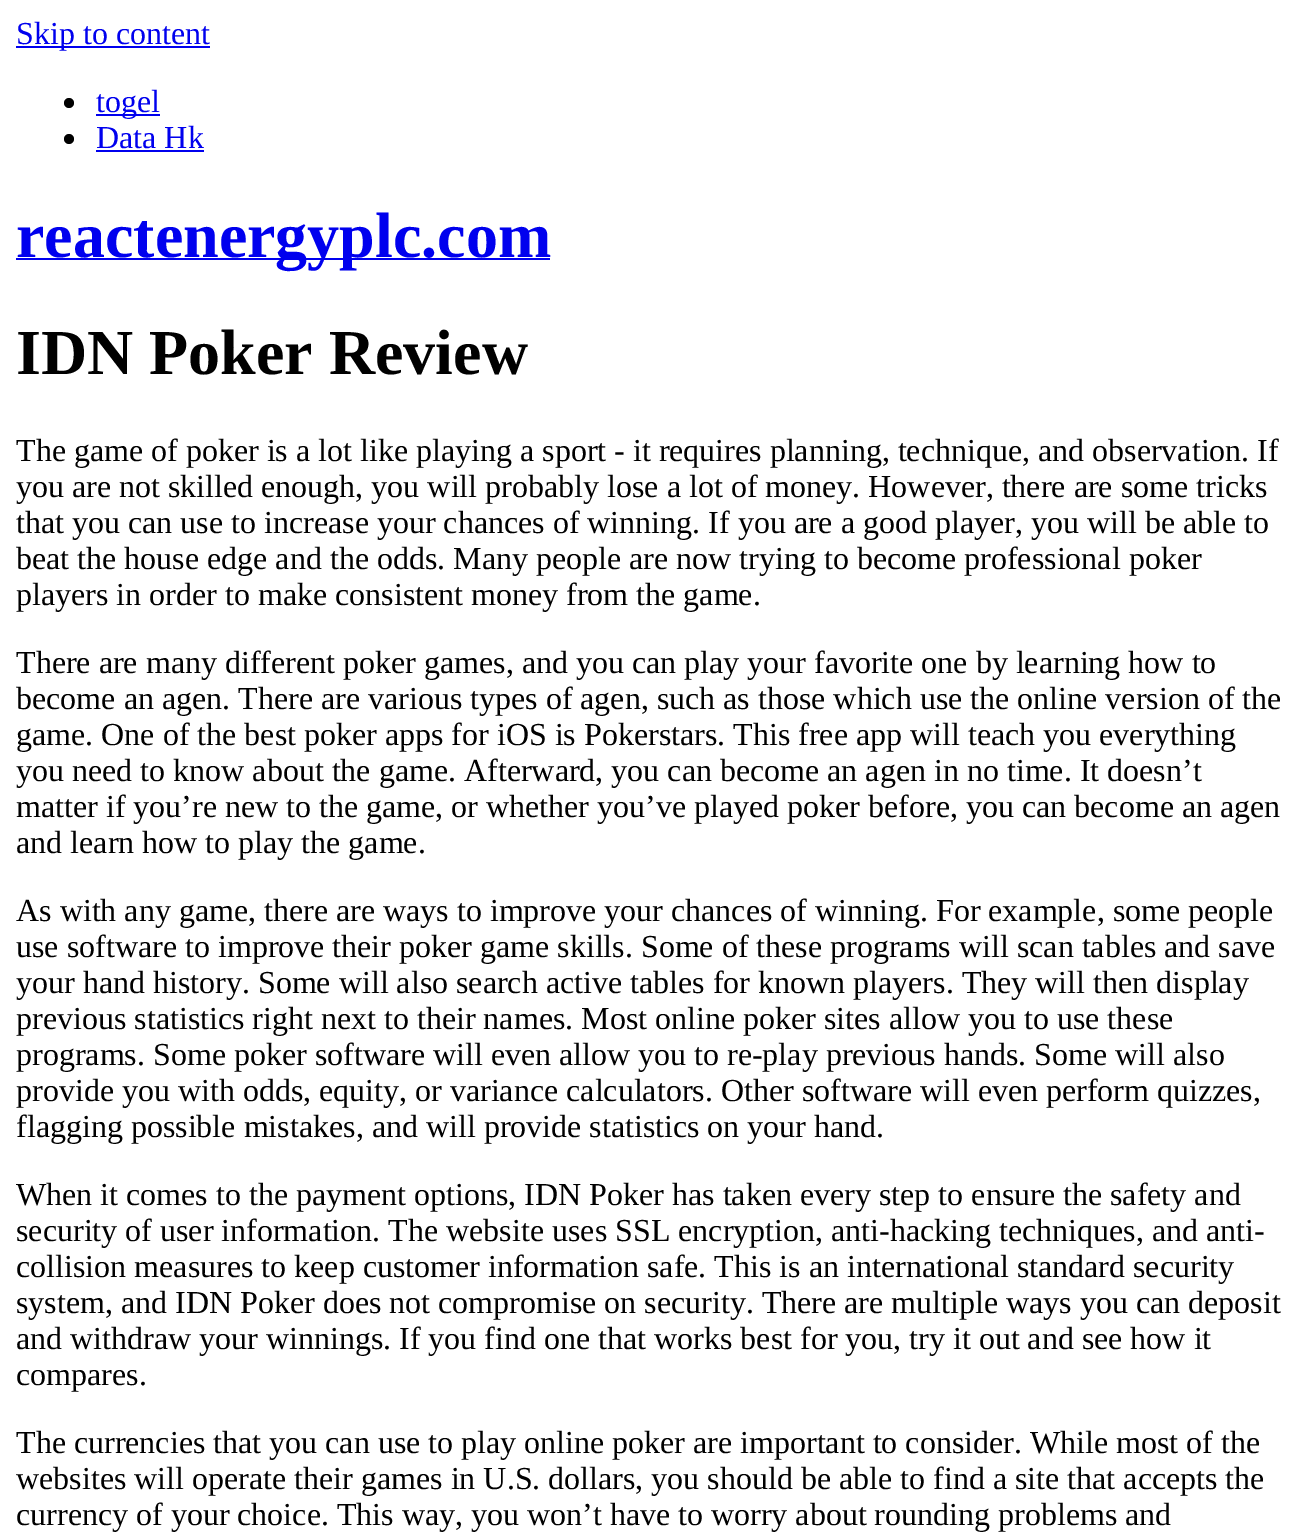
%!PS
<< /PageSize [1305 1540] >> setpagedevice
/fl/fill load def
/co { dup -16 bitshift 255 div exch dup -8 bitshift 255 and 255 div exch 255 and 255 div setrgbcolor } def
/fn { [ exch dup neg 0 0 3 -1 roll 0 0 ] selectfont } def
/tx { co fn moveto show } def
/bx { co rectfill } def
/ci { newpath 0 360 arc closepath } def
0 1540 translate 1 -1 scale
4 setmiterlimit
0 0 1305 1540 16#FFFFFF bx
16 46 194 2 16#0000EE bx
16#000000 co
69 103 5 ci fl
96 114 64 2 16#0000EE bx
16#000000 co
69 139 5 ci fl
96 150 108 2 16#0000EE bx
16 258 534 2 16#0000EE bx
(Skip to content) 16 44 /LiberationSerif-Regular 32 16#0000EE tx
(togel) 96 112 /LiberationSerif-Regular 32 16#0000EE tx
(Data Hk) 96 148 /LiberationSerif-Regular 32 16#0000EE tx
(reactenergyplc.com) 16 257 /LiberationSerif-Bold 64 16#0000EE tx
(IDN Poker Review) 16 374 /LiberationSerif-Bold 64 16#000000 tx
(The game of poker is a lot like playing a sport - it requires planning, technique, and observation. If) 16 461 /LiberationSerif-Regular 32 16#000000 tx
(you are not skilled enough, you will probably lose a lot of money. However, there are some tricks) 16 497 /LiberationSerif-Regular 32 16#000000 tx
(that you can use to increase your chances of winning. If you are a good player, you will be able to) 16 533 /LiberationSerif-Regular 32 16#000000 tx
(beat the house edge and the odds. Many people are now trying to become professional poker) 16 569 /LiberationSerif-Regular 32 16#000000 tx
(players in order to make consistent money from the game.) 16 605 /LiberationSerif-Regular 32 16#000000 tx
(There are many different poker games, and you can play your favorite one by learning how to) 16 673 /LiberationSerif-Regular 32 16#000000 tx
(become an agen. There are various types of agen, such as those which use the online version of the) 16 709 /LiberationSerif-Regular 32 16#000000 tx
(game. One of the best poker apps for iOS is Pokerstars. This free app will teach you everything) 16 745 /LiberationSerif-Regular 32 16#000000 tx
(you need to know about the game. Afterward, you can become an agen in no time. It doesn’t) 16 781 /LiberationSerif-Regular 32 16#000000 tx
(matter if you’re new to the game, or whether you’ve played poker before, you can become an agen) 16 817 /LiberationSerif-Regular 32 16#000000 tx
(and learn how to play the game.) 16 853 /LiberationSerif-Regular 32 16#000000 tx
(As with any game, there are ways to improve your chances of winning. For example, some people) 16 921 /LiberationSerif-Regular 32 16#000000 tx
(use software to improve their poker game skills. Some of these programs will scan tables and save) 16 957 /LiberationSerif-Regular 32 16#000000 tx
(your hand history. Some will also search active tables for known players. They will then display) 16 993 /LiberationSerif-Regular 32 16#000000 tx
(previous statistics right next to their names. Most online poker sites allow you to use these) 16 1029 /LiberationSerif-Regular 32 16#000000 tx
(programs. Some poker software will even allow you to re-play previous hands. Some will also) 16 1065 /LiberationSerif-Regular 32 16#000000 tx
(provide you with odds, equity, or variance calculators. Other software will even perform quizzes,) 16 1101 /LiberationSerif-Regular 32 16#000000 tx
(flagging possible mistakes, and will provide statistics on your hand.) 16 1137 /LiberationSerif-Regular 32 16#000000 tx
(When it comes to the payment options, IDN Poker has taken every step to ensure the safety and) 16 1205 /LiberationSerif-Regular 32 16#000000 tx
(security of user information. The website uses SSL encryption, anti-hacking techniques, and anti-) 16 1241 /LiberationSerif-Regular 32 16#000000 tx
(collision measures to keep customer information safe. This is an international standard security) 16 1277 /LiberationSerif-Regular 32 16#000000 tx
(system, and IDN Poker does not compromise on security. There are multiple ways you can deposit) 16 1313 /LiberationSerif-Regular 32 16#000000 tx
(and withdraw your winnings. If you find one that works best for you, try it out and see how it) 16 1349 /LiberationSerif-Regular 32 16#000000 tx
(compares.) 16 1385 /LiberationSerif-Regular 32 16#000000 tx
(The currencies that you can use to play online poker are important to consider. While most of the) 16 1453 /LiberationSerif-Regular 32 16#000000 tx
(websites will operate their games in U.S. dollars, you should be able to find a site that accepts the) 16 1489 /LiberationSerif-Regular 32 16#000000 tx
(currency of your choice. This way, you won’t have to worry about rounding problems and) 16 1525 /LiberationSerif-Regular 32 16#000000 tx
showpage
